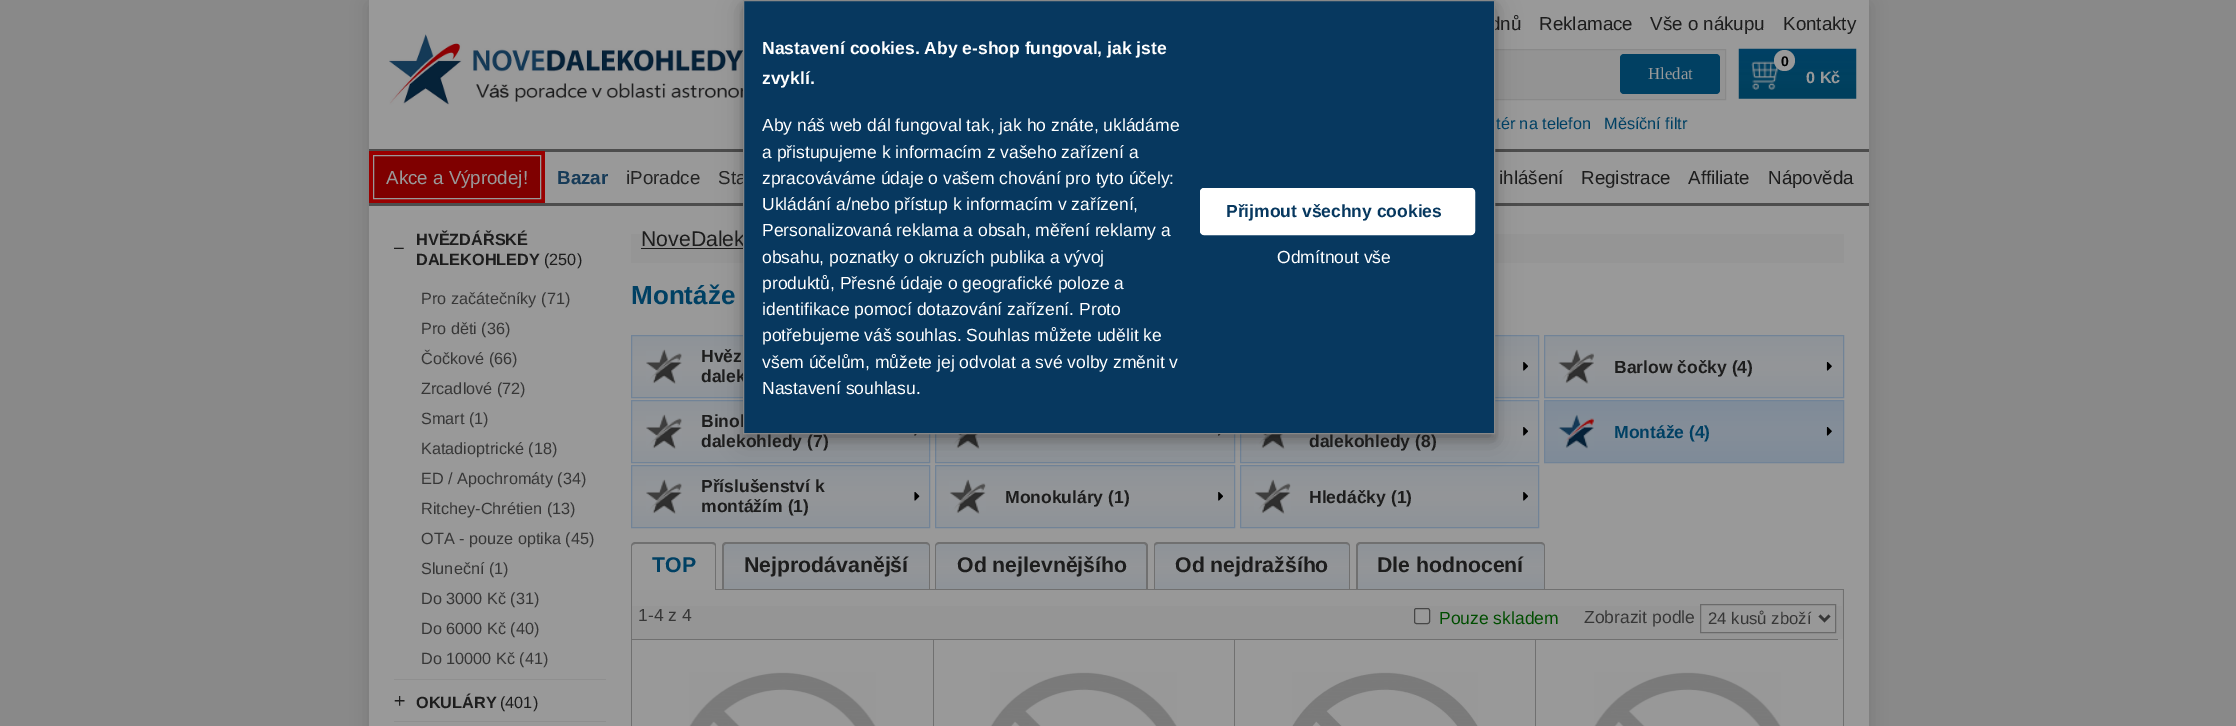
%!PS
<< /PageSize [2236 726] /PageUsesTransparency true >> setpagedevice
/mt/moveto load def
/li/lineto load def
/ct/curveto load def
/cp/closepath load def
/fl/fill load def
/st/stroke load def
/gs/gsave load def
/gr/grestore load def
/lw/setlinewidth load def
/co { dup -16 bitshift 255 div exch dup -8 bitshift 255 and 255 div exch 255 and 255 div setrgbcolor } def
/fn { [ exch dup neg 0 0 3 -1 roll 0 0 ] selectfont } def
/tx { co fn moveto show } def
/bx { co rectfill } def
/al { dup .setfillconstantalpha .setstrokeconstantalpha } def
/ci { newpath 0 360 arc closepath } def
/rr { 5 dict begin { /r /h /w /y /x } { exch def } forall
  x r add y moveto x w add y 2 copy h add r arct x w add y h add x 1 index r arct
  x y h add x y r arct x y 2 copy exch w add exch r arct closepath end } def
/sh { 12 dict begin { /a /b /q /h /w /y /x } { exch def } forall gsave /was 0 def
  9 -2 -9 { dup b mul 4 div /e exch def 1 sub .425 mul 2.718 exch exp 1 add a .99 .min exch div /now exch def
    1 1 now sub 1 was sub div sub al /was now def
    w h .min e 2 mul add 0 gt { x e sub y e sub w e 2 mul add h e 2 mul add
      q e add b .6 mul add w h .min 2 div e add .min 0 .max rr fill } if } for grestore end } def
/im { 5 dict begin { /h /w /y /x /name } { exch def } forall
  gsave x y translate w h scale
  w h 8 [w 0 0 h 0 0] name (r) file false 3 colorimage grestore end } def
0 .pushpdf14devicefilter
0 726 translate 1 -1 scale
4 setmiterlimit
0 0 2236 726 16#898989 bx
16#333333 co
369 5 1500 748 0 9 .2 sh
369 0 1500 726 16#999999 bx
(media/1.raw) 389 34 354 71 im
1495 50 230 49 16#939393 bx
16#898989 co
859.5 49.5 866 50 rectstroke
16#014062 co
1620 54 100 40 4 rr fl
(media/2.raw) 1738 48 119 51 im
(media/3.raw) 1751 61 28 29 im
16#999999 co
1784.5 60.5 10.5 ci fl
369 149 1500 3 16#4D4D4D bx
369 203 1500 3 16#4D4D4D bx
369 151 176 52 16#990000 bx
16#7F0000 co
373.5 155.5 mt 540.5 155.5 li 540.5 198.5 li 373.5 198.5 li cp gs fl gr
16#999999 co
st
394 679 212 1 16#8F8F8F bx
394 721 212 1 16#8F8F8F bx
631 234 1213 29 16#959595 bx
641 248 102 1 16#1D1D1D bx
gs 632 336 mt 743 336 li 743 396 li 632 396 li cp clip newpath
<< /ShadingType 2 /ColorSpace /DeviceRGB /Coords [781 336 781 396] /Extend [true true] /Function << /FunctionType 3 /Domain [0 1] /Functions [<< /FunctionType 2 /Domain [0 1] /C0 [.557 .576 .596] /C1 [.58 .588 .6] /N 1 >> << /FunctionType 2 /Domain [0 1] /C0 [.58 .588 .6] /C1 [.557 .576 .596] /N 1 >>] /Bounds [.5] /Encode [0 1 0 1] >> >> shfill gr
gs 631 396 mt 743 396 li 743 397 li 631 397 li cp clip newpath
<< /ShadingType 2 /ColorSpace /DeviceRGB /Coords [781 396 781 456] /Extend [true true] /Function << /FunctionType 3 /Domain [0 1] /Functions [<< /FunctionType 2 /Domain [0 1] /C0 [.557 .576 .596] /C1 [.58 .588 .6] /N 1 >> << /FunctionType 2 /Domain [0 1] /C0 [.58 .588 .6] /C1 [.557 .576 .596] /N 1 >>] /Bounds [.5] /Encode [0 1 0 1] >> >> shfill gr
16#718397 co
631.5 335.5 298 62 rectstroke
(media/4.raw) 646 349 36 35 im
gs 1495 336 mt 1538 336 li 1538 396 li 1495 396 li cp clip newpath
<< /ShadingType 2 /ColorSpace /DeviceRGB /Coords [1389 336 1389 396] /Extend [true true] /Function << /FunctionType 3 /Domain [0 1] /Functions [<< /FunctionType 2 /Domain [0 1] /C0 [.557 .576 .596] /C1 [.58 .588 .6] /N 1 >> << /FunctionType 2 /Domain [0 1] /C0 [.58 .588 .6] /C1 [.557 .576 .596] /N 1 >>] /Bounds [.5] /Encode [0 1 0 1] >> >> shfill gr
gs 1495 396 mt 1539 396 li 1539 397 li 1495 397 li cp clip newpath
<< /ShadingType 2 /ColorSpace /DeviceRGB /Coords [1389 396 1389 456] /Extend [true true] /Function << /FunctionType 3 /Domain [0 1] /Functions [<< /FunctionType 2 /Domain [0 1] /C0 [.557 .576 .596] /C1 [.58 .588 .6] /N 1 >> << /FunctionType 2 /Domain [0 1] /C0 [.58 .588 .6] /C1 [.557 .576 .596] /N 1 >>] /Bounds [.5] /Encode [0 1 0 1] >> >> shfill gr
1240.5 335.5 298 62 rectstroke
(media/5.raw) 1523 362 5 9 im
gs 1545 336 mt 1843 336 li 1843 396 li 1545 396 li cp clip newpath
<< /ShadingType 2 /ColorSpace /DeviceRGB /Coords [1694 336 1694 396] /Extend [true true] /Function << /FunctionType 3 /Domain [0 1] /Functions [<< /FunctionType 2 /Domain [0 1] /C0 [.557 .576 .596] /C1 [.58 .588 .6] /N 1 >> << /FunctionType 2 /Domain [0 1] /C0 [.58 .588 .6] /C1 [.557 .576 .596] /N 1 >>] /Bounds [.5] /Encode [0 1 0 1] >> >> shfill gr
gs 1544 396 mt 1844 396 li 1844 397 li 1544 397 li cp clip newpath
<< /ShadingType 2 /ColorSpace /DeviceRGB /Coords [1694 396 1694 456] /Extend [true true] /Function << /FunctionType 3 /Domain [0 1] /Functions [<< /FunctionType 2 /Domain [0 1] /C0 [.557 .576 .596] /C1 [.58 .588 .6] /N 1 >> << /FunctionType 2 /Domain [0 1] /C0 [.58 .588 .6] /C1 [.557 .576 .596] /N 1 >>] /Bounds [.5] /Encode [0 1 0 1] >> >> shfill gr
1544.5 335.5 299 62 rectstroke
(media/6.raw) 1558 349 37 35 im
(media/7.raw) 1826 362 6 9 im
gs 632 401 mt 929 401 li 929 461 li 632 461 li cp clip newpath
<< /ShadingType 2 /ColorSpace /DeviceRGB /Coords [781 401 781 461] /Extend [true true] /Function << /FunctionType 3 /Domain [0 1] /Functions [<< /FunctionType 2 /Domain [0 1] /C0 [.557 .576 .596] /C1 [.58 .588 .6] /N 1 >> << /FunctionType 2 /Domain [0 1] /C0 [.58 .588 .6] /C1 [.557 .576 .596] /N 1 >>] /Bounds [.5] /Encode [0 1 0 1] >> >> shfill gr
gs 631 461 mt 930 461 li 930 462 li 631 462 li cp clip newpath
<< /ShadingType 2 /ColorSpace /DeviceRGB /Coords [781 461 781 521] /Extend [true true] /Function << /FunctionType 3 /Domain [0 1] /Functions [<< /FunctionType 2 /Domain [0 1] /C0 [.557 .576 .596] /C1 [.58 .588 .6] /N 1 >> << /FunctionType 2 /Domain [0 1] /C0 [.58 .588 .6] /C1 [.557 .576 .596] /N 1 >>] /Bounds [.5] /Encode [0 1 0 1] >> >> shfill gr
631.5 400.5 298 62 rectstroke
(media/4.raw) 646 414 36 35 im
(media/8.raw) 914 434 3 2 im
gs 936 434 mt 1234 434 li 1234 461 li 936 461 li cp clip newpath
<< /ShadingType 2 /ColorSpace /DeviceRGB /Coords [1085 401 1085 461] /Extend [true true] /Function << /FunctionType 3 /Domain [0 1] /Functions [<< /FunctionType 2 /Domain [0 1] /C0 [.557 .576 .596] /C1 [.58 .588 .6] /N 1 >> << /FunctionType 2 /Domain [0 1] /C0 [.58 .588 .6] /C1 [.557 .576 .596] /N 1 >>] /Bounds [.5] /Encode [0 1 0 1] >> >> shfill gr
gs 935 461 mt 1235 461 li 1235 462 li 935 462 li cp clip newpath
<< /ShadingType 2 /ColorSpace /DeviceRGB /Coords [1085 461 1085 521] /Extend [true true] /Function << /FunctionType 3 /Domain [0 1] /Functions [<< /FunctionType 2 /Domain [0 1] /C0 [.557 .576 .596] /C1 [.58 .588 .6] /N 1 >> << /FunctionType 2 /Domain [0 1] /C0 [.58 .588 .6] /C1 [.557 .576 .596] /N 1 >>] /Bounds [.5] /Encode [0 1 0 1] >> >> shfill gr
935.5 400.5 299 62 rectstroke
(media/9.raw) 951 434 30 15 im
(media/10.raw) 1218 434 3 2 im
gs 1241 401 mt 1538 401 li 1538 461 li 1241 461 li cp clip newpath
<< /ShadingType 2 /ColorSpace /DeviceRGB /Coords [1389 401 1389 461] /Extend [true true] /Function << /FunctionType 3 /Domain [0 1] /Functions [<< /FunctionType 2 /Domain [0 1] /C0 [.557 .576 .596] /C1 [.58 .588 .6] /N 1 >> << /FunctionType 2 /Domain [0 1] /C0 [.58 .588 .6] /C1 [.557 .576 .596] /N 1 >>] /Bounds [.5] /Encode [0 1 0 1] >> >> shfill gr
gs 1240 461 mt 1539 461 li 1539 462 li 1240 462 li cp clip newpath
<< /ShadingType 2 /ColorSpace /DeviceRGB /Coords [1389 461 1389 521] /Extend [true true] /Function << /FunctionType 3 /Domain [0 1] /Functions [<< /FunctionType 2 /Domain [0 1] /C0 [.557 .576 .596] /C1 [.58 .588 .6] /N 1 >> << /FunctionType 2 /Domain [0 1] /C0 [.58 .588 .6] /C1 [.557 .576 .596] /N 1 >>] /Bounds [.5] /Encode [0 1 0 1] >> >> shfill gr
1240.5 400.5 298 62 rectstroke
(media/5.raw) 1523 427 5 9 im
(media/11.raw) 1256 434 30 15 im
gs 1545 401 mt 1843 401 li 1843 461 li 1545 461 li cp clip newpath
<< /ShadingType 2 /ColorSpace /DeviceRGB /Coords [1694 401 1694 461] /Extend [true true] /Function << /FunctionType 3 /Domain [0 1] /Functions [<< /FunctionType 2 /Domain [0 1] /C0 [.498 .545 .596] /C1 [.522 .557 .596] /N 1 >> << /FunctionType 2 /Domain [0 1] /C0 [.522 .557 .596] /C1 [.498 .545 .596] /N 1 >>] /Bounds [.5] /Encode [0 1 0 1] >> >> shfill gr
gs 1544 461 mt 1844 461 li 1844 462 li 1544 462 li cp clip newpath
<< /ShadingType 2 /ColorSpace /DeviceRGB /Coords [1694 461 1694 521] /Extend [true true] /Function << /FunctionType 3 /Domain [0 1] /Functions [<< /FunctionType 2 /Domain [0 1] /C0 [.498 .545 .596] /C1 [.522 .557 .596] /N 1 >> << /FunctionType 2 /Domain [0 1] /C0 [.522 .557 .596] /C1 [.498 .545 .596] /N 1 >>] /Bounds [.5] /Encode [0 1 0 1] >> >> shfill gr
1544.5 400.5 299 62 rectstroke
(media/12.raw) 1558 414 36 35 im
(media/13.raw) 1826 427 6 9 im
gs 632 466 mt 929 466 li 929 526 li 632 526 li cp clip newpath
<< /ShadingType 2 /ColorSpace /DeviceRGB /Coords [781 466 781 526] /Extend [true true] /Function << /FunctionType 3 /Domain [0 1] /Functions [<< /FunctionType 2 /Domain [0 1] /C0 [.557 .576 .596] /C1 [.58 .588 .6] /N 1 >> << /FunctionType 2 /Domain [0 1] /C0 [.58 .588 .6] /C1 [.557 .576 .596] /N 1 >>] /Bounds [.5] /Encode [0 1 0 1] >> >> shfill gr
gs 631 526 mt 930 526 li 930 527 li 631 527 li cp clip newpath
<< /ShadingType 2 /ColorSpace /DeviceRGB /Coords [781 526 781 586] /Extend [true true] /Function << /FunctionType 3 /Domain [0 1] /Functions [<< /FunctionType 2 /Domain [0 1] /C0 [.557 .576 .596] /C1 [.58 .588 .6] /N 1 >> << /FunctionType 2 /Domain [0 1] /C0 [.58 .588 .6] /C1 [.557 .576 .596] /N 1 >>] /Bounds [.5] /Encode [0 1 0 1] >> >> shfill gr
631.5 465.5 298 62 rectstroke
(media/4.raw) 646 479 36 35 im
(media/14.raw) 914 492 6 9 im
gs 936 466 mt 1234 466 li 1234 526 li 936 526 li cp clip newpath
<< /ShadingType 2 /ColorSpace /DeviceRGB /Coords [1085 466 1085 526] /Extend [true true] /Function << /FunctionType 3 /Domain [0 1] /Functions [<< /FunctionType 2 /Domain [0 1] /C0 [.557 .576 .596] /C1 [.58 .588 .6] /N 1 >> << /FunctionType 2 /Domain [0 1] /C0 [.58 .588 .6] /C1 [.557 .576 .596] /N 1 >>] /Bounds [.5] /Encode [0 1 0 1] >> >> shfill gr
gs 935 526 mt 1235 526 li 1235 527 li 935 527 li cp clip newpath
<< /ShadingType 2 /ColorSpace /DeviceRGB /Coords [1085 526 1085 586] /Extend [true true] /Function << /FunctionType 3 /Domain [0 1] /Functions [<< /FunctionType 2 /Domain [0 1] /C0 [.557 .576 .596] /C1 [.58 .588 .6] /N 1 >> << /FunctionType 2 /Domain [0 1] /C0 [.58 .588 .6] /C1 [.557 .576 .596] /N 1 >>] /Bounds [.5] /Encode [0 1 0 1] >> >> shfill gr
935.5 465.5 299 62 rectstroke
(media/15.raw) 949 479 37 35 im
(media/16.raw) 1218 492 5 9 im
gs 1241 466 mt 1538 466 li 1538 526 li 1241 526 li cp clip newpath
<< /ShadingType 2 /ColorSpace /DeviceRGB /Coords [1389 466 1389 526] /Extend [true true] /Function << /FunctionType 3 /Domain [0 1] /Functions [<< /FunctionType 2 /Domain [0 1] /C0 [.557 .576 .596] /C1 [.58 .588 .6] /N 1 >> << /FunctionType 2 /Domain [0 1] /C0 [.58 .588 .6] /C1 [.557 .576 .596] /N 1 >>] /Bounds [.5] /Encode [0 1 0 1] >> >> shfill gr
gs 1240 526 mt 1539 526 li 1539 527 li 1240 527 li cp clip newpath
<< /ShadingType 2 /ColorSpace /DeviceRGB /Coords [1389 526 1389 586] /Extend [true true] /Function << /FunctionType 3 /Domain [0 1] /Functions [<< /FunctionType 2 /Domain [0 1] /C0 [.557 .576 .596] /C1 [.58 .588 .6] /N 1 >> << /FunctionType 2 /Domain [0 1] /C0 [.58 .588 .6] /C1 [.557 .576 .596] /N 1 >>] /Bounds [.5] /Encode [0 1 0 1] >> >> shfill gr
1240.5 465.5 298 62 rectstroke
(media/17.raw) 1254 479 37 35 im
(media/5.raw) 1523 492 5 9 im
716 589 1128 1 16#707070 bx
635 542 mt 712 542 li 715 542 716 544 716 546 ct 716 590 li 631 590 li 631 546 li 631 544 633 542 635 542 ct cp 635 544 mt 712 544 li 714 544 715 545 715 546 ct 715 590 li 632 590 li 632 546 li 632 545 634 544 635 544 ct cp eofill
gs
727 543 mt 926 543 li 928 543 930 545 930 547 ct 930 589 li 723 589 li 723 547 li 723 545 725 543 727 543 ct cp clip newpath
gs 724 544 mt 930 544 li 930 589 li 724 589 li cp clip newpath
<< /ShadingType 2 /ColorSpace /DeviceRGB /Coords [826 544 826 589] /Extend [true true] /Function << /FunctionType 3 /Domain [0 1] /Functions [<< /FunctionType 2 /Domain [0 1] /C0 [.557 .576 .596] /C1 [.58 .588 .6] /N 1 >> << /FunctionType 2 /Domain [0 1] /C0 [.58 .588 .6] /C1 [.557 .576 .596] /N 1 >>] /Bounds [.5] /Encode [0 1 0 1] >> >> shfill gr
gr
726 542 mt 926 542 li 928 542 930 544 930 546 ct 930 589 li 722 589 li 722 546 li 722 544 724 542 726 542 ct cp 726 544 mt 926 544 li 928 544 929 545 929 546 ct 929 589 li 724 589 li 724 546 li 724 545 725 544 726 544 ct cp eofill
gs
939 543 mt 1144 543 li 1146 543 1148 545 1148 547 ct 1148 589 li 935 589 li 935 547 li 935 545 937 543 939 543 ct cp clip newpath
gs 935 544 mt 1148 544 li 1148 589 li 935 589 li cp clip newpath
<< /ShadingType 2 /ColorSpace /DeviceRGB /Coords [1041 544 1041 589] /Extend [true true] /Function << /FunctionType 3 /Domain [0 1] /Functions [<< /FunctionType 2 /Domain [0 1] /C0 [.557 .576 .596] /C1 [.58 .588 .6] /N 1 >> << /FunctionType 2 /Domain [0 1] /C0 [.58 .588 .6] /C1 [.557 .576 .596] /N 1 >>] /Bounds [.5] /Encode [0 1 0 1] >> >> shfill gr
gr
939 542 mt 1144 542 li 1146 542 1148 544 1148 546 ct 1148 589 li 935 589 li 935 546 li 935 544 937 542 939 542 ct cp 939 544 mt 1144 544 li 1145 544 1146 545 1146 546 ct 1146 589 li 936 589 li 936 546 li 936 545 937 544 939 544 ct cp eofill
gs
1158 543 mt 1346 543 li 1348 543 1350 545 1350 547 ct 1350 589 li 1154 589 li 1154 547 li 1154 545 1156 543 1158 543 ct cp clip newpath
gs 1154 544 mt 1350 544 li 1350 589 li 1154 589 li cp clip newpath
<< /ShadingType 2 /ColorSpace /DeviceRGB /Coords [1252 544 1252 589] /Extend [true true] /Function << /FunctionType 3 /Domain [0 1] /Functions [<< /FunctionType 2 /Domain [0 1] /C0 [.557 .576 .596] /C1 [.58 .588 .6] /N 1 >> << /FunctionType 2 /Domain [0 1] /C0 [.58 .588 .6] /C1 [.557 .576 .596] /N 1 >>] /Bounds [.5] /Encode [0 1 0 1] >> >> shfill gr
gr
1158 542 mt 1346 542 li 1348 542 1350 544 1350 546 ct 1350 589 li 1154 589 li 1154 546 li 1154 544 1155 542 1158 542 ct cp 1158 544 mt 1346 544 li 1348 544 1349 545 1349 546 ct 1349 589 li 1155 589 li 1155 546 li 1155 545 1156 544 1158 544 ct cp eofill
gs
1360 543 mt 1541 543 li 1543 543 1545 545 1545 547 ct 1545 589 li 1356 589 li 1356 547 li 1356 545 1358 543 1360 543 ct cp clip newpath
gs 1356 544 mt 1545 544 li 1545 589 li 1356 589 li cp clip newpath
<< /ShadingType 2 /ColorSpace /DeviceRGB /Coords [1451 544 1451 589] /Extend [true true] /Function << /FunctionType 3 /Domain [0 1] /Functions [<< /FunctionType 2 /Domain [0 1] /C0 [.557 .576 .596] /C1 [.58 .588 .6] /N 1 >> << /FunctionType 2 /Domain [0 1] /C0 [.58 .588 .6] /C1 [.557 .576 .596] /N 1 >>] /Bounds [.5] /Encode [0 1 0 1] >> >> shfill gr
gr
1360 542 mt 1541 542 li 1543 542 1545 544 1545 546 ct 1545 589 li 1356 589 li 1356 546 li 1356 544 1358 542 1360 542 ct cp 1360 544 mt 1541 544 li 1543 544 1544 545 1544 546 ct 1544 589 li 1358 589 li 1358 546 li 1358 545 1359 544 1360 544 ct cp eofill
1843 590 1 136 16#707070 bx
632 590 1211 49 16#959595 bx
632 590 1210 16 16#989898 bx
631 590 1 49 16#707070 bx
16#999999 co
1414.5 608.5 15 15 2 rr gs fl gr
16#474747 co
st
1701 606 134 26 16#989898 bx
16#6A6A6A co
1700.5 604.5 135 28 rectstroke
16#373737 co
2.5 lw
1819.5 615.5 mt 1824.5 620.5 li 1829.5 615.5 li st
631 639 1207 1 16#707070 bx
631 639 1 87 16#707070 bx
(media/18.raw) 689 672 187 54 im
933 639 1 87 16#707070 bx
(media/19.raw) 990 672 187 54 im
1234 639 1 87 16#707070 bx
(media/20.raw) 1292 672 186 54 im
1535 639 1 87 16#707070 bx
(media/18.raw) 1594 672 187 54 im
16#000000 co
743 8 752 433 0 12.5 .19 sh
743 5 752 434 0 5 .2 sh
(dnů) 1490 30 /LiberationSans-Regular 18.75 16#1D1D1D tx
(Reklamace) 1539 30 /LiberationSans-Regular 18.75 16#1D1D1D tx
(Vše o nákupu) 1650 30 /LiberationSans-Regular 18.75 16#1D1D1D tx
(Kontakty) 1783 30 /LiberationSans-Regular 18.75 16#1D1D1D tx
(Hledat) 1648 79 /LiberationSerif-Regular 16.75 16#999999 tx
(0) 1781 66 /LiberationSans-Bold 14 16#000000 tx
(0 Kč) 1806 83 /LiberationSans-Bold 16.25 16#999999 tx
(tér na telefon) 1496 129 /LiberationSans-Regular 16.25 16#004063 tx
(Měsíční filtr) 1604 129 /LiberationSans-Regular 16.25 16#004063 tx
(Akce a Výprodej!) 386 184 /LiberationSans-Regular 18.75 16#999999 tx
(Bazar) 557 184 /LiberationSans-Bold 18.75 16#173B58 tx
(iPoradce) 626 184 /LiberationSans-Regular 18.75 16#252525 tx
(Sta) 718 184 /LiberationSans-Regular 18.75 16#252525 tx
(ihlášení) 1499 184 /LiberationSans-Regular 18.75 16#1D1D1D tx
(Registrace) 1581 184 /LiberationSans-Regular 18.75 16#1D1D1D tx
(Affiliate) 1688 184 /LiberationSans-Regular 18.75 16#1D1D1D tx
(Nápověda) 1768 184 /LiberationSans-Regular 18.75 16#1D1D1D tx
(−) 393 255 /LiberationSans-Regular 20 16#1D1D1D tx
(HVĚZDÁŘSKÉ) 416 245 /LiberationSans-Bold 16.25 16#1D1D1D tx
(DALEKOHLEDY) 416 265 /LiberationSans-Bold 16.25 16#1D1D1D tx
(\(250\)) 544 265 /LiberationSans-Regular 16.25 16#1D1D1D tx
(Pro začátečníky \(71\)) 421 304 /LiberationSans-Regular 16.25 16#373737 tx
(Pro děti \(36\)) 421 334 /LiberationSans-Regular 16.25 16#373737 tx
(Čočkové \(66\)) 421 364 /LiberationSans-Regular 16.25 16#373737 tx
(Zrcadlové \(72\)) 421 394 /LiberationSans-Regular 16.25 16#373737 tx
(Smart \(1\)) 421 424 /LiberationSans-Regular 16.25 16#373737 tx
(Katadioptrické \(18\)) 421 454 /LiberationSans-Regular 16.25 16#373737 tx
(ED / Apochromáty \(34\)) 421 484 /LiberationSans-Regular 16.25 16#373737 tx
(Ritchey-Chrétien \(13\)) 421 514 /LiberationSans-Regular 16.25 16#373737 tx
(OTA - pouze optika \(45\)) 421 544 /LiberationSans-Regular 16.25 16#373737 tx
(Sluneční \(1\)) 421 574 /LiberationSans-Regular 16.25 16#373737 tx
(Do 3000 Kč \(31\)) 421 604 /LiberationSans-Regular 16.25 16#373737 tx
(Do 6000 Kč \(40\)) 421 634 /LiberationSans-Regular 16.25 16#373737 tx
(Do 10000 Kč \(41\)) 421 664 /LiberationSans-Regular 16.25 16#373737 tx
/LiberationSans-Regular 20 fn
16#1D1D1D co
gs 393 695 translate 90 rotate 0 0 mt (+) show gr
(OKULÁRY) 416 708 /LiberationSans-Bold 16.25 16#1D1D1D tx
(\(401\)) 500 708 /LiberationSans-Regular 16.25 16#1D1D1D tx
(NoveDalek) 641 246 /LiberationSans-Regular 21.25 16#1D1D1D tx
(Montáže) 631 304 /LiberationSans-Bold 26 16#004063 tx
(Hvěz) 701 362 /LiberationSans-Bold 17.5 16#1D1D1D tx
(dalek) 701 382 /LiberationSans-Bold 17.5 16#1D1D1D tx
(Barlow čočky \(4\)) 1614 373 /LiberationSans-Bold 17.5 16#1D1D1D tx
(Binok) 701 427 /LiberationSans-Bold 17.5 16#1D1D1D tx
(dalekohledy \(7\)) 701 447 /LiberationSans-Bold 17.5 16#1D1D1D tx
(dalekohledy \(8\)) 1309 447 /LiberationSans-Bold 17.5 16#1D1D1D tx
(Montáže \(4\)) 1614 438 /LiberationSans-Bold 17.5 16#004063 tx
(Příslušenství k) 701 492 /LiberationSans-Bold 17.5 16#1D1D1D tx
(montážím \(1\)) 701 512 /LiberationSans-Bold 17.5 16#1D1D1D tx
(Monokuláry \(1\)) 1005 503 /LiberationSans-Bold 17.5 16#1D1D1D tx
(Hledáčky \(1\)) 1309 503 /LiberationSans-Bold 17.5 16#1D1D1D tx
(TOP) 652 572 /LiberationSans-Bold 21.25 16#004063 tx
(Nejprodávanější) 744 572 /LiberationSans-Bold 21.25 16#1D1D1D tx
(Od nejlevnějšího) 957 572 /LiberationSans-Bold 21.25 16#1D1D1D tx
(Od nejdražšího) 1175 572 /LiberationSans-Bold 21.25 16#1D1D1D tx
(Dle hodnocení) 1377 572 /LiberationSans-Bold 21.25 16#1D1D1D tx
(1-4 z 4) 638 621 /LiberationSans-Regular 17.5 16#373737 tx
(Pouze skladem) 1439 624 /LiberationSans-Regular 17.5 16#004D00 tx
(Zobrazit podle) 1584 623 /LiberationSans-Regular 17.5 16#373737 tx
(24 kusů zboží) 1708 624 /LiberationSans-Regular 16.75 16#373737 tx
16#07385F co
743.5 .5 mt 1494.5 .5 li 1494.5 433.5 li 743.5 433.5 li cp gs fl gr
16#888888 co
1 lw
st
(Nastavení cookies. Aby e-shop fungoval, jak jste) 762 54 /LiberationSans-Bold 17.5 16#FFFFFF tx
(zvyklí.) 762 84 /LiberationSans-Bold 17.5 16#FFFFFF tx
(Aby náš web dál fungoval tak, jak ho znáte, ukládáme) 762 131 /LiberationSans-Regular 17.5 16#FFFFFF tx
(a přistupujeme k informacím z vašeho zařízení a) 762 158 /LiberationSans-Regular 17.5 16#FFFFFF tx
(zpracováváme údaje o vašem chování pro tyto účely:) 762 184 /LiberationSans-Regular 17.5 16#FFFFFF tx
(Ukládání a/nebo přístup k informacím v zařízení,) 762 210 /LiberationSans-Regular 17.5 16#FFFFFF tx
(Personalizovaná reklama a obsah, měření reklamy a) 762 236 /LiberationSans-Regular 17.5 16#FFFFFF tx
(obsahu, poznatky o okruzích publika a vývoj) 762 263 /LiberationSans-Regular 17.5 16#FFFFFF tx
(produktů, Přesné údaje o geografické poloze a) 762 289 /LiberationSans-Regular 17.5 16#FFFFFF tx
(identifikace pomocí dotazování zařízení. Proto) 762 315 /LiberationSans-Regular 17.5 16#FFFFFF tx
(potřebujeme váš souhlas. Souhlas můžete udělit ke) 762 341 /LiberationSans-Regular 17.5 16#FFFFFF tx
(všem účelům, můžete jej odvolat a své volby změnit v) 762 368 /LiberationSans-Regular 17.5 16#FFFFFF tx
(Nastavení souhlasu.) 762 394 /LiberationSans-Regular 17.5 16#FFFFFF tx
1200.5 188.5 274 46 3.5 rr gs fl gr
st
(Přijmout všechny cookies) 1226 217 /LiberationSans-Bold 17.5 16#07385F tx
(Odmítnout vše) 1277 263 /LiberationSans-Regular 17.5 16#FFFFFF tx
.poppdf14devicefilter showpage
